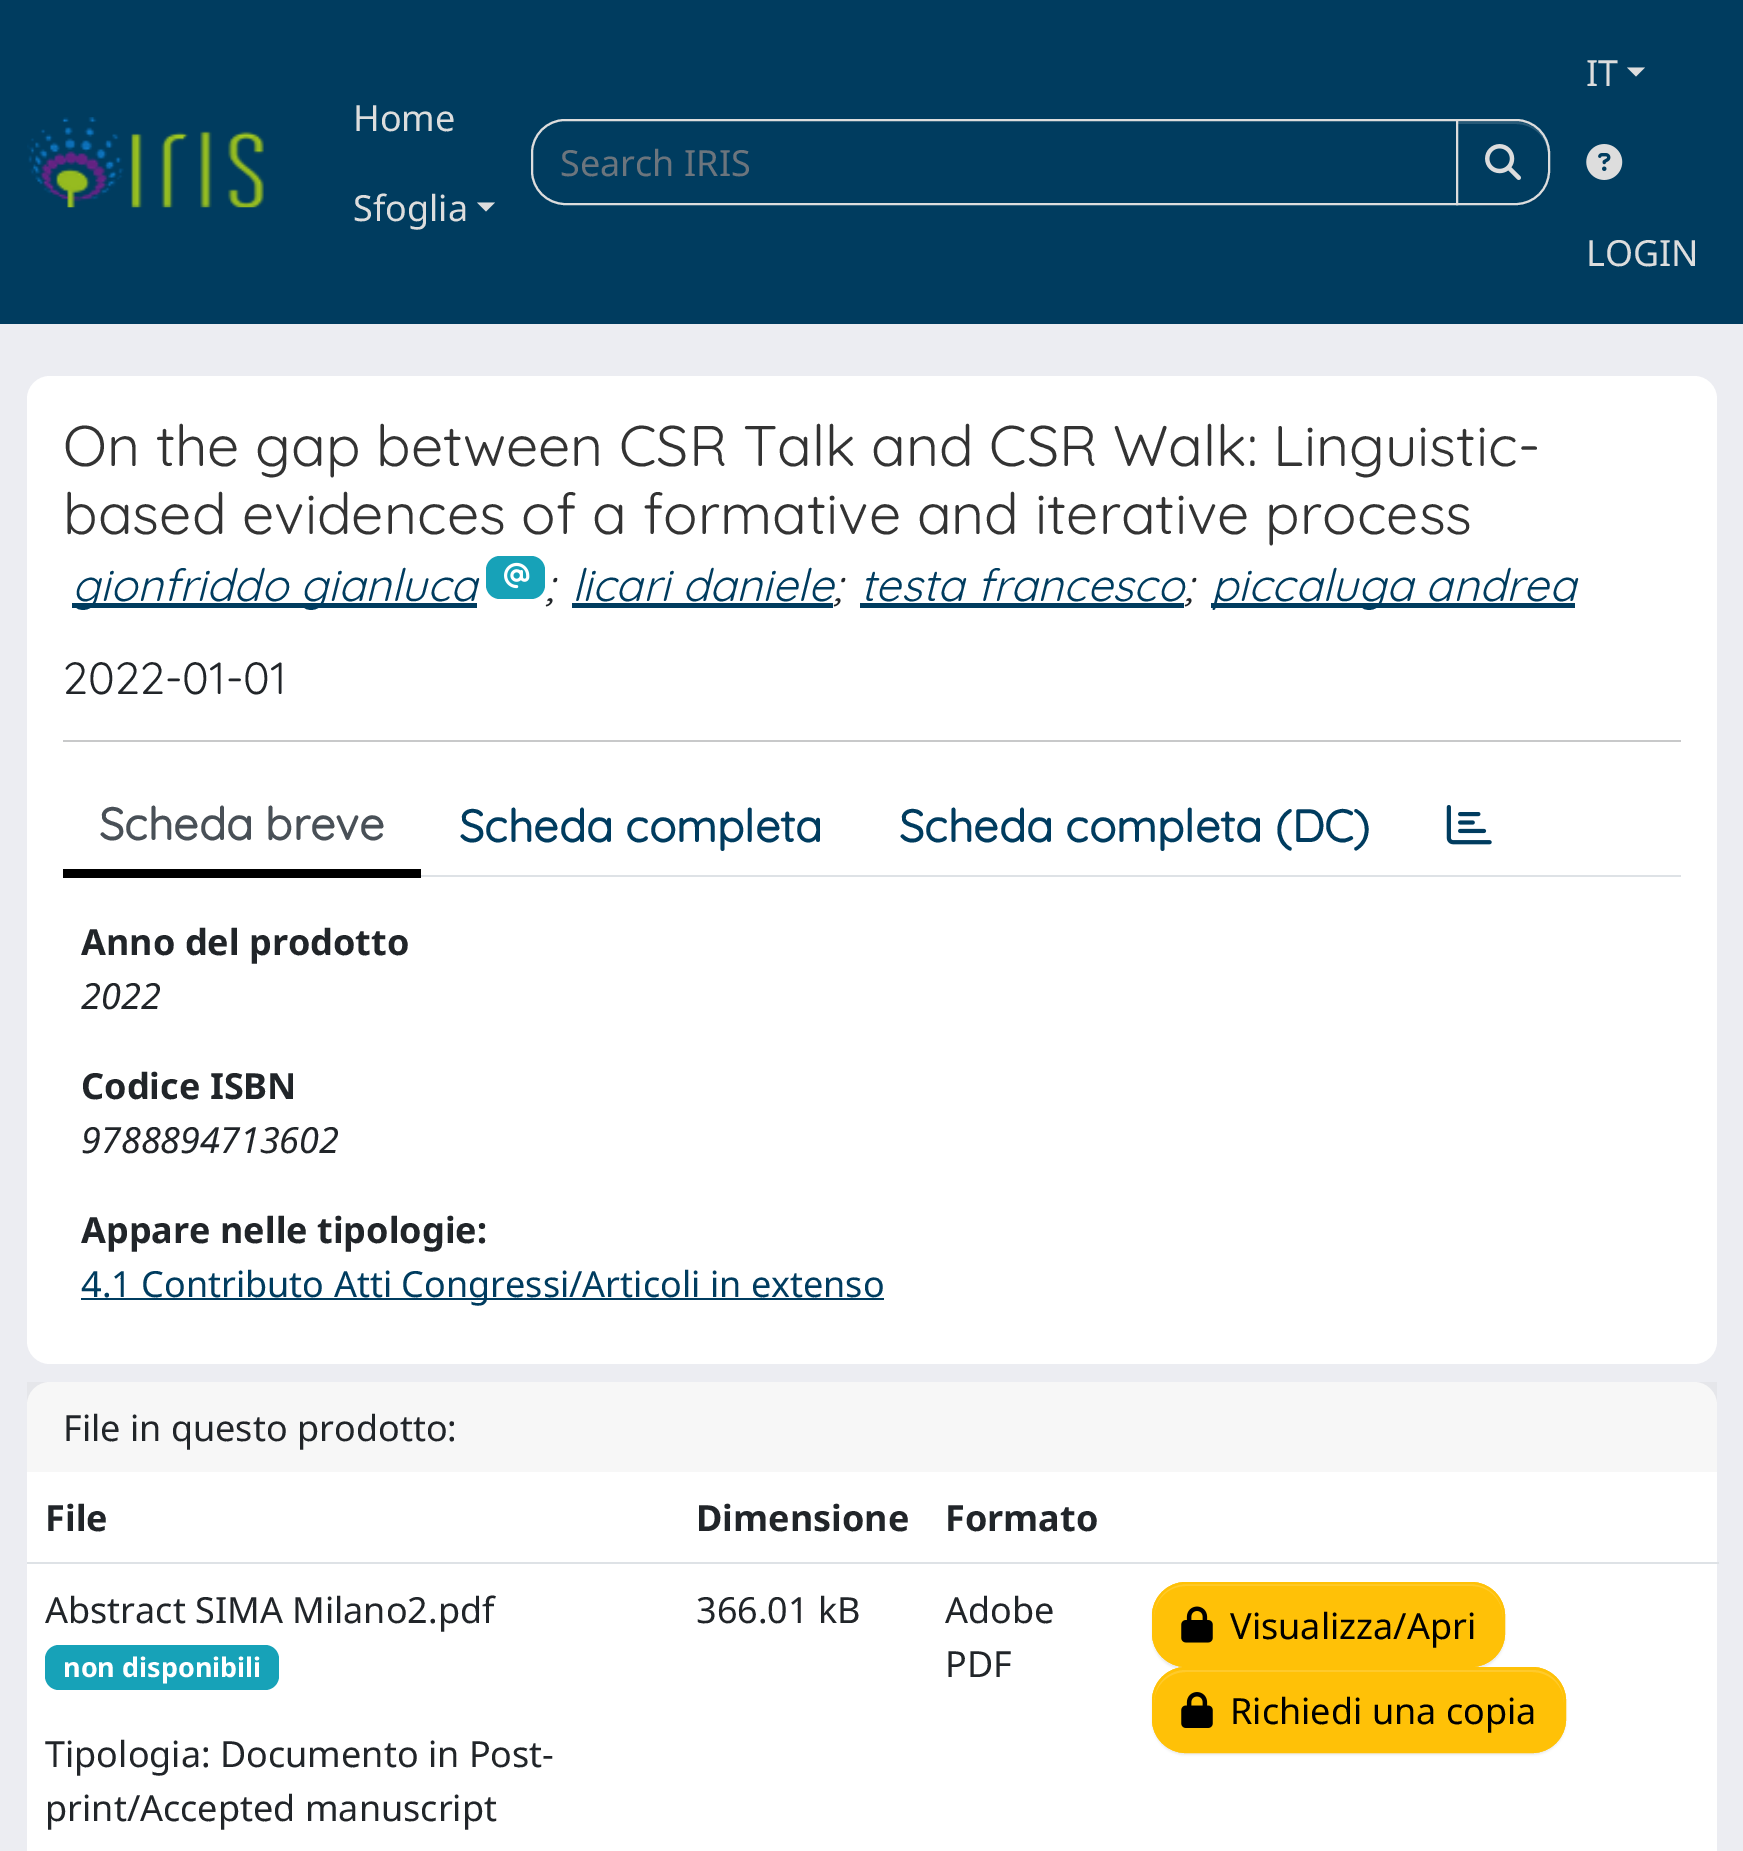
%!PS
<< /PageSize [1743 1851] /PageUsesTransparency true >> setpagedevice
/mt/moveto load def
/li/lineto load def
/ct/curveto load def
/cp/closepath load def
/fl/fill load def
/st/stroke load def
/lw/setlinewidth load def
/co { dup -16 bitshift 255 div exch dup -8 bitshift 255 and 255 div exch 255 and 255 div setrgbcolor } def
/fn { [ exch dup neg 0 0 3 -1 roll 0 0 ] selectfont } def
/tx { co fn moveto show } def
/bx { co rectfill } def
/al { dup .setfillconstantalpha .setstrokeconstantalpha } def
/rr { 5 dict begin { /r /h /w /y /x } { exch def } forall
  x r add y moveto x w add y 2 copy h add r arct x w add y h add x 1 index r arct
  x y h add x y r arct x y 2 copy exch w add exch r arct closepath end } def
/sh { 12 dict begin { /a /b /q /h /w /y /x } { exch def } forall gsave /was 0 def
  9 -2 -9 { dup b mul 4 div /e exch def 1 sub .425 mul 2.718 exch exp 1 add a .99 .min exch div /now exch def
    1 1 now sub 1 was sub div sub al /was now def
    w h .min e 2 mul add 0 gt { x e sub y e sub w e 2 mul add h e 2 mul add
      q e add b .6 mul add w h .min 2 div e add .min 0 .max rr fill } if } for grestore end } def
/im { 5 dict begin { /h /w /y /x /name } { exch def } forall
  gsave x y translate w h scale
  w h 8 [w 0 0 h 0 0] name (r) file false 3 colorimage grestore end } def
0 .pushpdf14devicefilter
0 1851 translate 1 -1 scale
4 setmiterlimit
0 0 1743 1851 16#ECEDF2 bx
0 0 1743 324 16#003C5F bx
(media/1.raw) 27 117 237 91 im
16#DDDDDD co
477 202.5 mt 495 202.5 li 486 211.5 li cp fl
2 lw
565 120 mt 1457 120 li 1457 204 li 565 204 li 547 204 532 189 532 171 ct 532 153 li 532 135 547 120 565 120 ct cp st
16#000000 co
1456 122 94 85 34 1 .07 sh
16#003C5F co
1456 119 mt 1516 119 li 1535 119 1550 134 1550 153 ct 1550 171 li 1550 190 1535 205 1516 205 ct 1456 205 li cp fl
16#265977 co
1458 124 mt 1516 124 li 1534 124 1548 138 1548 155 ct 1548 154 li 1548 136 1534 122 1516 122 ct 1458 122 li cp fl
16#DDDDDD co
1457 120 mt 1516 120 li 1534 120 1549 135 1549 153 ct 1549 171 li 1549 189 1534 204 1516 204 ct 1457 204 li cp st
(media/2.raw) 1485 144 36 36 im
1627 67.5 mt 1645 67.5 li 1636 76.5 li cp fl
(media/3.raw) 1586 144 37 36 im
16#FFFFFF co
27 376 1690 988 23 rr fl
72 603 405 5 16#003C5F bx
16#17A2B8 co
486 556 59 43 14 rr fl
(media/4.raw) 504 562 26 27 im
572 603 261 5 16#003C5F bx
860 603 324 5 16#003C5F bx
1211 603 364 5 16#003C5F bx
63 740 1618 2 16#C8C9CA bx
421 875 1260 2 16#DEE2E6 bx
63 869 358 9 16#000000 bx
(media/5.raw) 1446 805 46 40 im
81 1298 803 2 16#003C5F bx
16#FFFFFF co
27 1382 1690 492 23 rr fl
0.03 al
27 1382 1690 90 16#000000 bx
1 al
27 1562 1692 2 16#DEE2E6 bx
16#17A2B8 co
45 1645 234 45 14 rr fl
16#000000 co
1152 1584 353 86 34 1 .07 sh
16#FFC107 co
1152 1582 353 85 34 rr fl
16#FFCA2C co
1186 1586 mt 1472 1586 li 1489 1586 1503 1600 1503 1618 ct 1503 1616 li 1503 1598 1489 1584 1471 1584 ct 1186 1584 li 1168 1584 1154 1598 1154 1616 ct 1154 1618 li 1154 1600 1168 1586 1186 1586 ct cp fl
16#FFC107 co
1153 1583 351 83 33 rr st
(media/6.raw) 1181 1606 32 37 im
16#000000 co
1152 1670 414 85 34 1 .07 sh
16#FFC107 co
1152 1667 414 86 34 rr fl
16#FFCA2C co
1186 1672 mt 1532 1672 li 1550 1672 1564 1686 1564 1703 ct 1564 1702 li 1564 1684 1550 1670 1532 1670 ct 1186 1670 li 1168 1670 1154 1684 1154 1702 ct 1154 1703 li 1154 1686 1168 1672 1186 1672 ct cp fl
16#FFC107 co
1153 1668 412 84 33 rr st
(media/7.raw) 1181 1692 32 36 im
(Home) 353 131 /NotoSans-Regular 36 16#DDDDDD tx
(Sfoglia) 353 221 /NotoSans-Regular 36 16#DDDDDD tx
(Search IRIS) 560 176 /NotoSans-Regular 36 16#6C757D tx
(IT) 1586 86 /NotoSans-Regular 36 16#DDDDDD tx
(LOGIN) 1586 266 /NotoSans-Regular 36 16#DDDDDD tx
(On the gap between CSR Talk and CSR Walk: Linguistic-) 63 466 /Quicksand-Light 57.25 16#333333 tx
(based evidences of a formative and iterative process) 63 534 /Quicksand-Light 57.25 16#333333 tx
(gionfriddo gianluca) 72 601 /Quicksand-LightItalic 45 16#003C5F tx
(;) 545 601 /Quicksand-LightItalic 45 16#212529 tx
(licari daniele) 572 601 /Quicksand-LightItalic 45 16#003C5F tx
(;) 833 601 /Quicksand-LightItalic 45 16#212529 tx
(testa francesco) 860 601 /Quicksand-LightItalic 45 16#003C5F tx
(;) 1184 601 /Quicksand-LightItalic 45 16#212529 tx
(piccaluga andrea) 1211 601 /Quicksand-LightItalic 45 16#003C5F tx
(2022-01-01) 63 694 /Quicksand-Light 45 16#212529 tx
(Scheda breve) 99 840 /Quicksand-Bold 45 16#495057 tx
(Scheda completa) 459 842 /Quicksand-Bold 45 16#003C5F tx
(Scheda completa \(DC\)) 899 842 /Quicksand-Bold 45 16#003C5F tx
(Anno del prodotto) 81 955 /NotoSans-Bold 36 16#212529 tx
(2022) 81 1009 /NotoSans-Italic 36 16#212529 tx
(Codice ISBN) 81 1099 /NotoSans-Bold 36 16#212529 tx
(9788894713602) 81 1153 /NotoSans-Italic 36 16#212529 tx
(Appare nelle tipologie:) 81 1243 /NotoSans-Bold 36 16#212529 tx
(4.1 Contributo Atti Congressi/Articoli in extenso) 81 1297 /NotoSans-Regular 36 16#003C5F tx
(File in questo prodotto:) 63 1441 /NotoSans-Regular 36 16#212529 tx
(File) 45 1531 /NotoSans-Bold 36 16#212529 tx
(Dimensione) 696 1531 /NotoSans-Bold 36 16#212529 tx
(Formato) 945 1531 /NotoSans-Bold 36 16#212529 tx
(Abstract SIMA Milano2.pdf) 45 1623 /NotoSans-Regular 36 16#212529 tx
(non disponibili) 63 1677 /NotoSans-Bold 27 16#FFFFFF tx
(Tipologia: Documento in Post-) 45 1767 /NotoSans-Regular 36 16#212529 tx
(print/Accepted manuscript) 45 1821 /NotoSans-Regular 36 16#212529 tx
(366.01 kB) 696 1623 /NotoSans-Regular 36 16#212529 tx
(Adobe) 945 1623 /NotoSans-Regular 36 16#212529 tx
(PDF) 945 1677 /NotoSans-Regular 36 16#212529 tx
(Visualizza/Apri) 1230 1639 /NotoSans-Regular 36 16#000000 tx
(Richiedi una copia) 1230 1724 /NotoSans-Regular 36 16#000000 tx
.poppdf14devicefilter showpage
